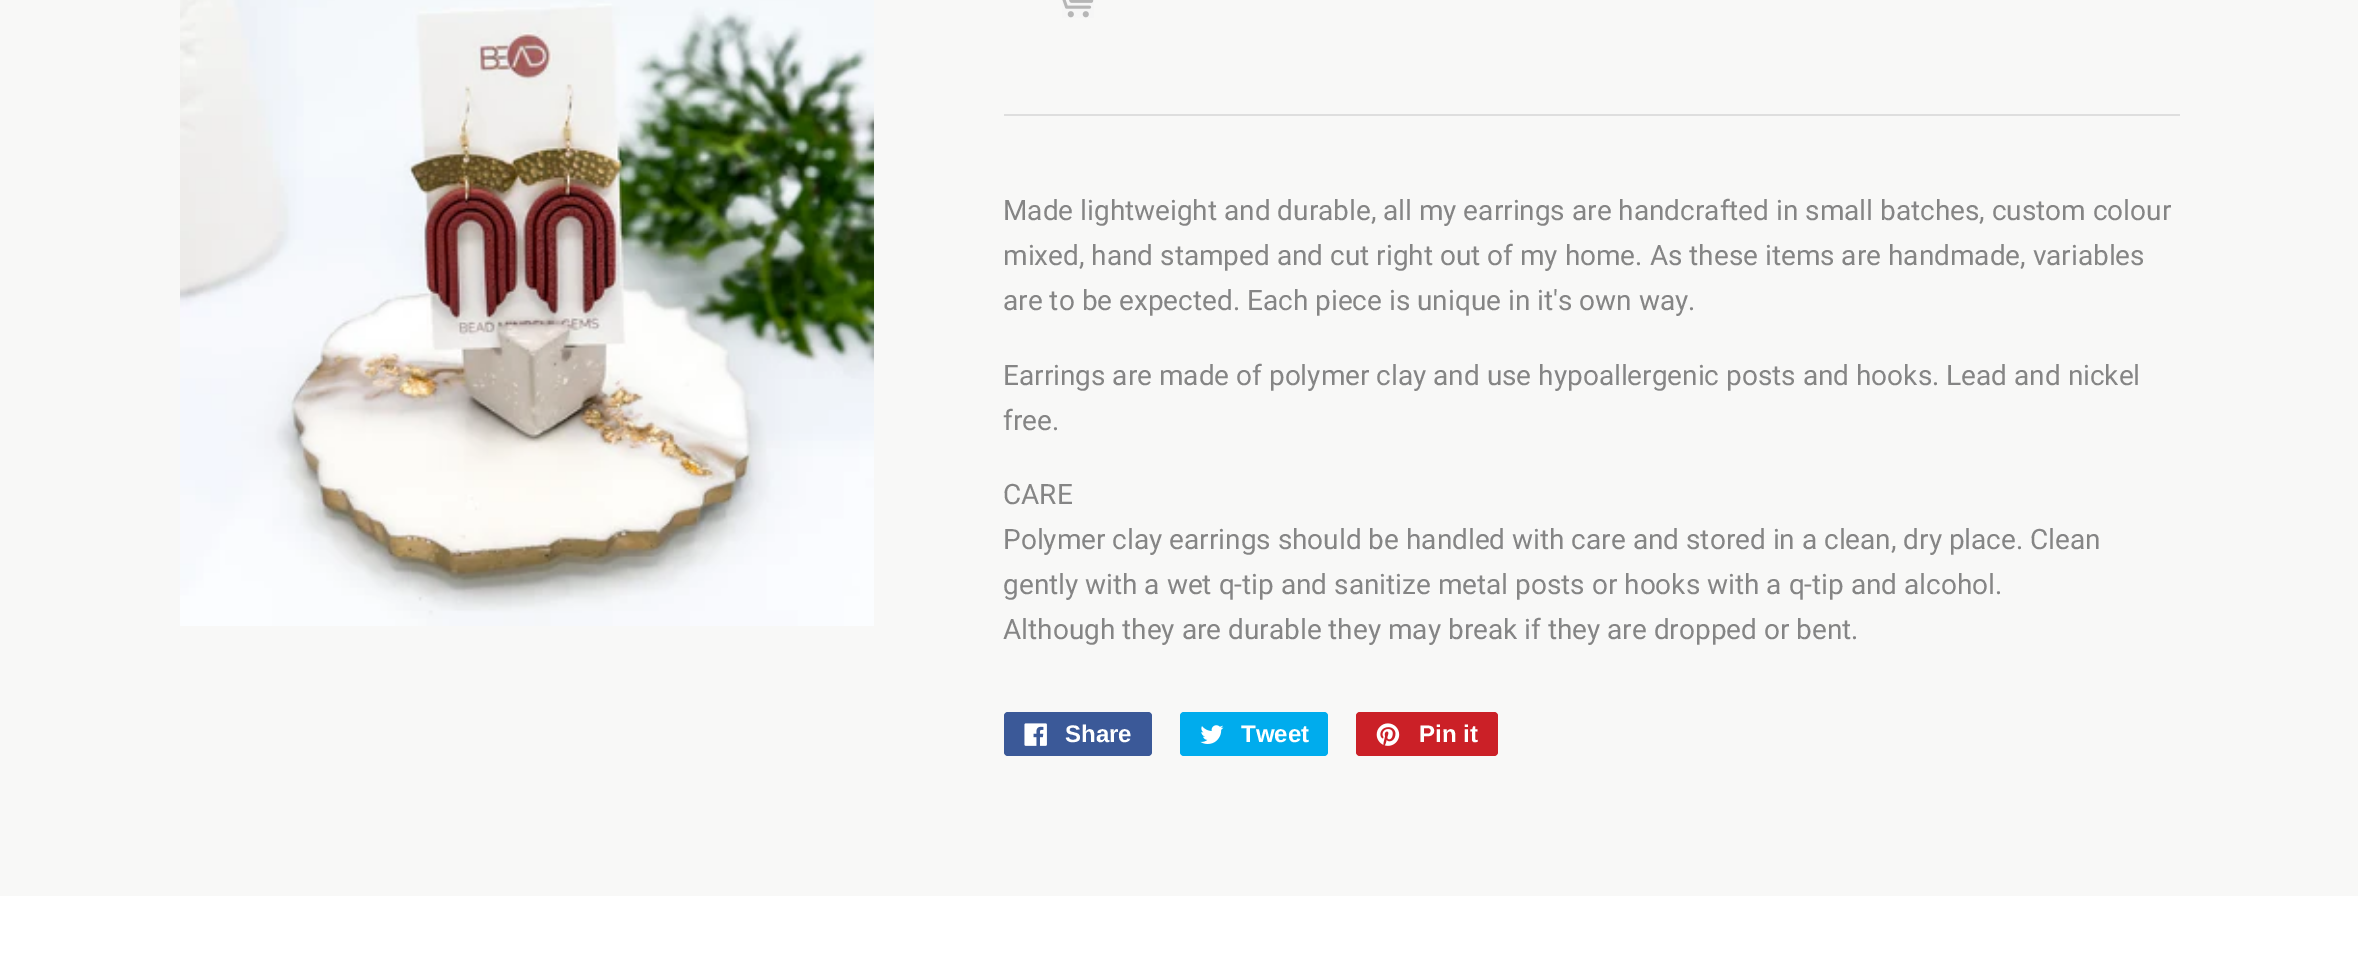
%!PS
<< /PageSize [2358 964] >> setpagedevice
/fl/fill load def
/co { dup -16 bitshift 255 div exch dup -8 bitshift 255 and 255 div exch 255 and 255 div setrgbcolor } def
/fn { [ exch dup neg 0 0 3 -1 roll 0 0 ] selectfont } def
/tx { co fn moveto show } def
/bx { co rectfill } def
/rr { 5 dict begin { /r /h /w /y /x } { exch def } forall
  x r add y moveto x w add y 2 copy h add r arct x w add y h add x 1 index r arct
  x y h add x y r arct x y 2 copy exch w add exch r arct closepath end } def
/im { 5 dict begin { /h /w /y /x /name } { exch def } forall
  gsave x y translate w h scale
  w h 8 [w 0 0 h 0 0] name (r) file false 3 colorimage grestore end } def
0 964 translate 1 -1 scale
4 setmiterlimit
0 0 2358 964 16#F8F8F7 bx
(media/1.raw) 180 0 694 626 im
(media/2.raw) 1062 0 32 18 im
1004 114 1176 2 16#DEDEDE bx
16#3B5998 co
1004 712 148 44 4 rr fl
(media/3.raw) 1024 723 23 23 im
16#00ACED co
1180 712 148 44 4 rr fl
(media/4.raw) 1200 725 24 19 im
16#CB2027 co
1356 712 142 44 4 rr fl
(media/5.raw) 1376 723 24 23 im
0 896 2358 68 16#FFFFFF bx
(Made lightweight and durable, all my earrings are handcrafted in small batches, custom colour) 1003 220 /Roboto-Regular 28 16#858585 tx
(mixed, hand stamped and cut right out of my home. As these items are handmade, variables) 1003 265 /Roboto-Regular 28 16#858585 tx
(are to be expected. Each piece is unique in it's own way.) 1003 310 /Roboto-Regular 28 16#858585 tx
(Earrings are made of polymer clay and use hypoallergenic posts and hooks. Lead and nickel) 1003 385 /Roboto-Regular 28 16#858585 tx
(free.) 1003 430 /Roboto-Regular 28 16#858585 tx
(CARE) 1003 504 /Roboto-Regular 28 16#858585 tx
(Polymer clay earrings should be handled with care and stored in a clean, dry place. Clean) 1003 549 /Roboto-Regular 28 16#858585 tx
(gently with a wet q-tip and sanitize metal posts or hooks with a q-tip and alcohol.) 1003 594 /Roboto-Regular 28 16#858585 tx
(Although they are durable they may break if they are dropped or bent.) 1003 639 /Roboto-Regular 28 16#858585 tx
(Share) 1065 742 /LiberationSans-Bold 24 16#FFFFFF tx
(Tweet) 1241 742 /LiberationSans-Bold 24 16#FFFFFF tx
(Pin it) 1419 742 /LiberationSans-Bold 24 16#FFFFFF tx
showpage
